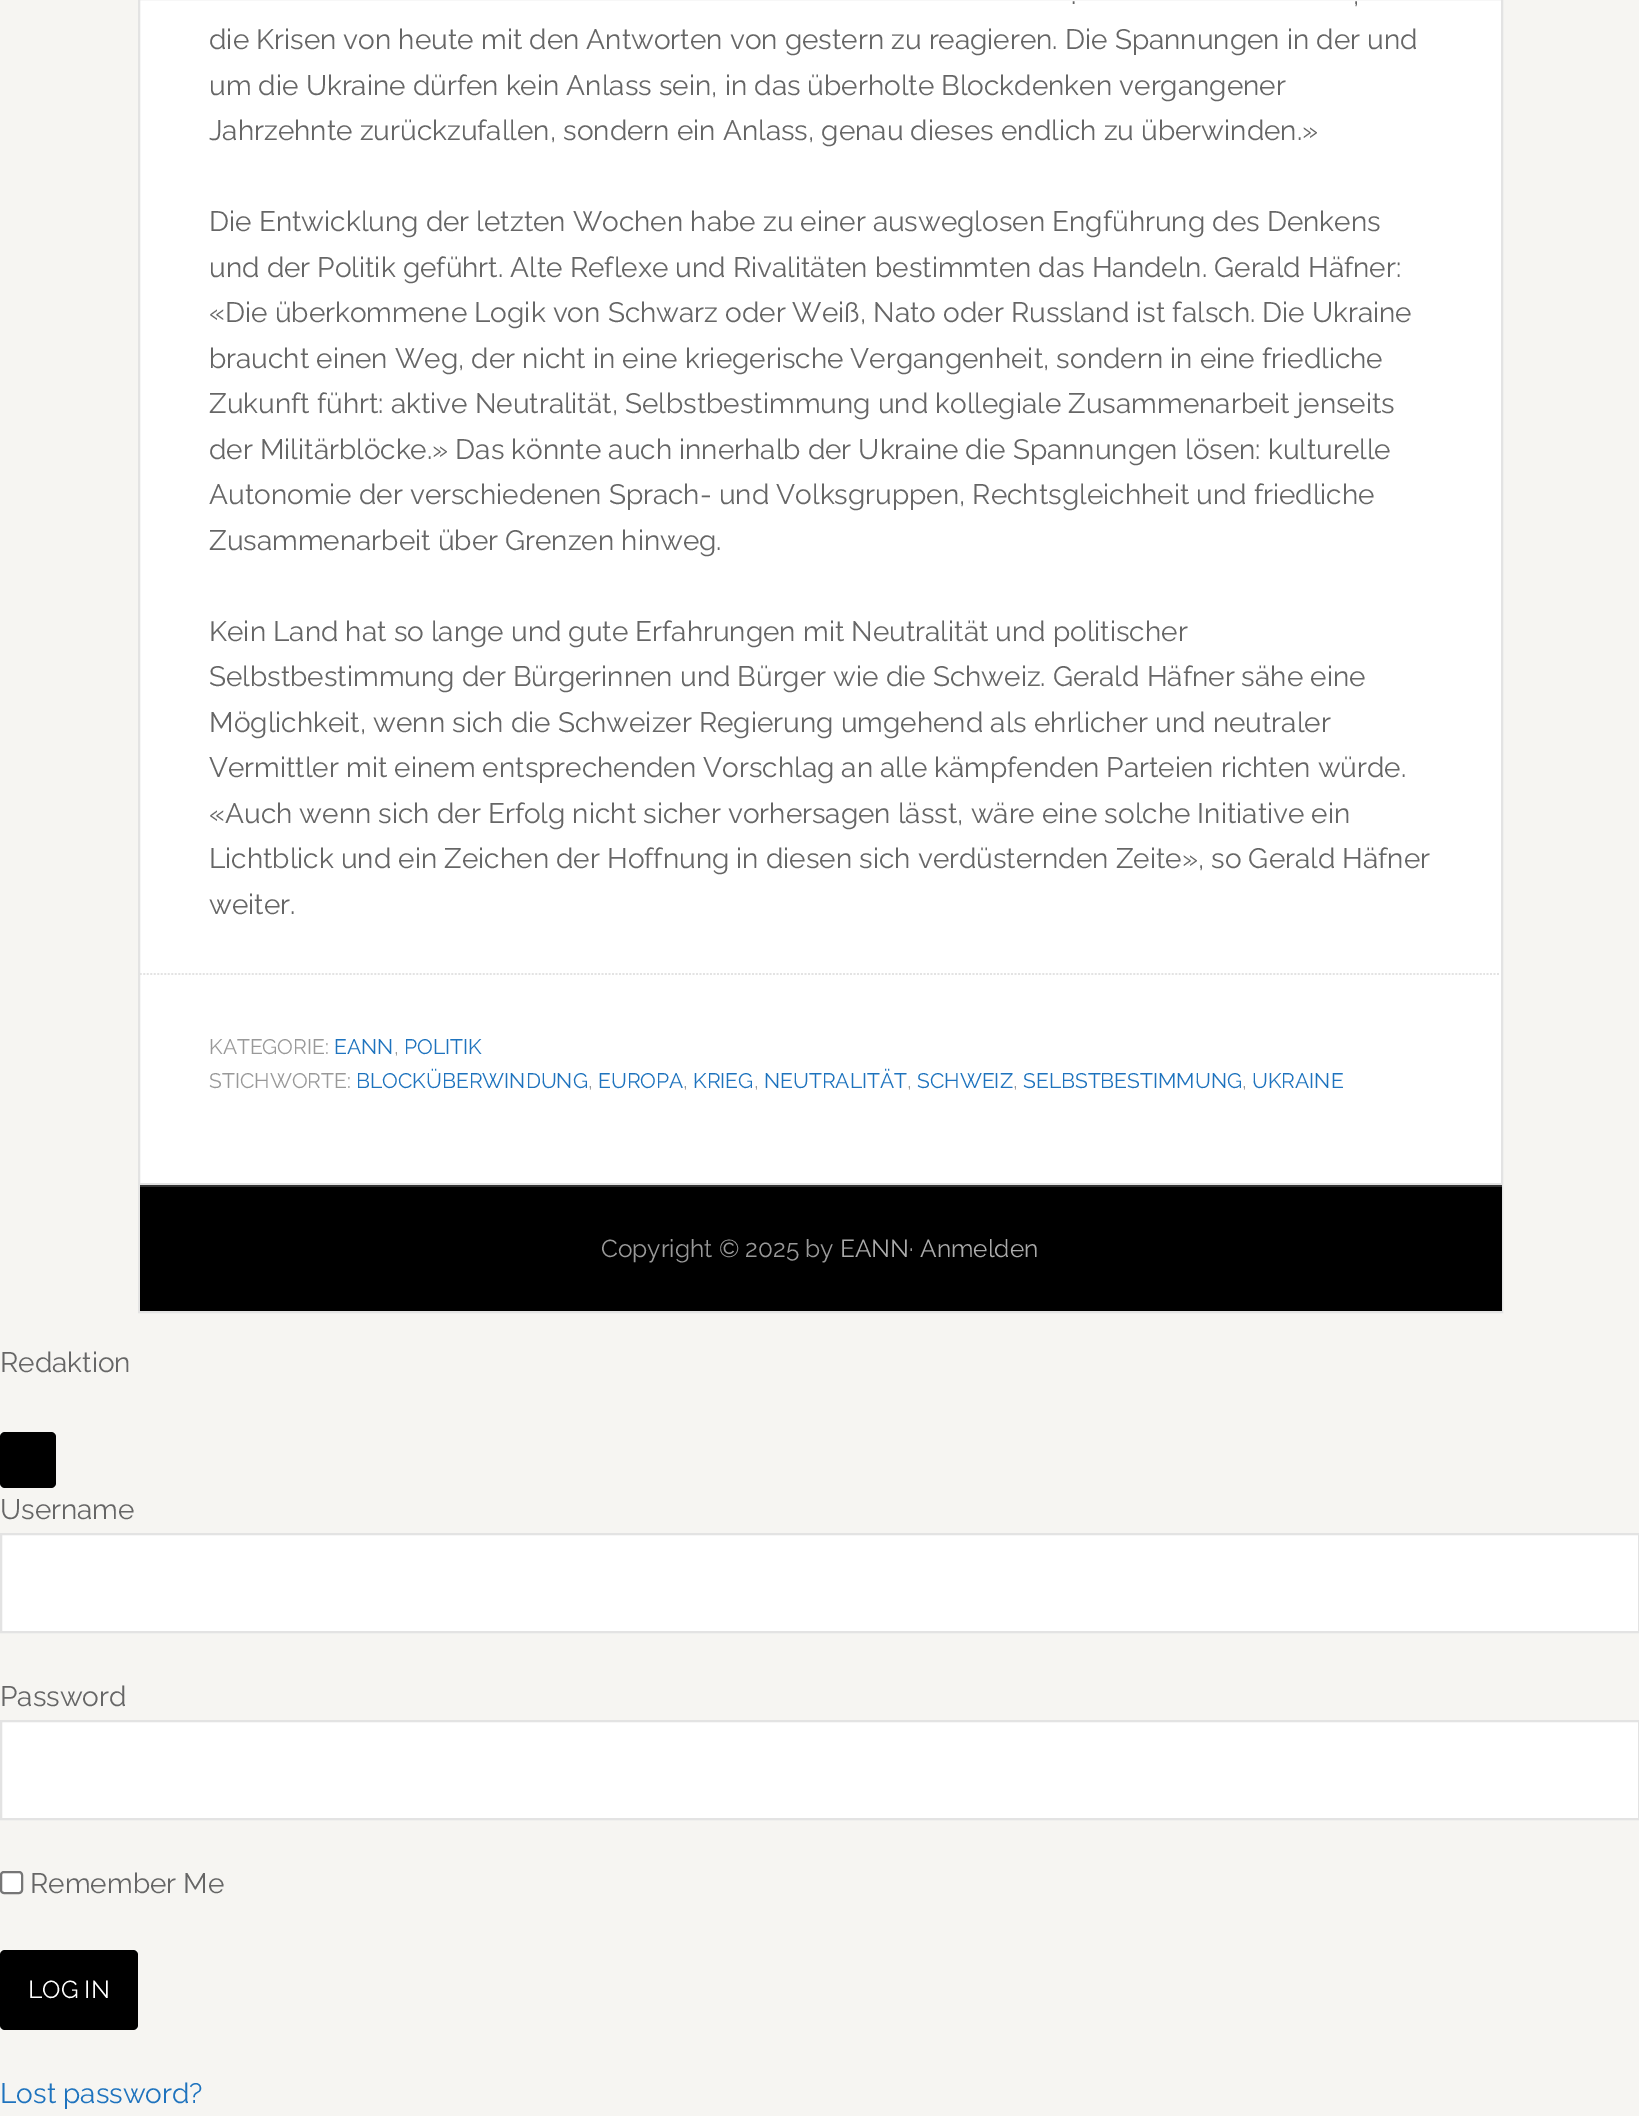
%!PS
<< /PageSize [1639 2116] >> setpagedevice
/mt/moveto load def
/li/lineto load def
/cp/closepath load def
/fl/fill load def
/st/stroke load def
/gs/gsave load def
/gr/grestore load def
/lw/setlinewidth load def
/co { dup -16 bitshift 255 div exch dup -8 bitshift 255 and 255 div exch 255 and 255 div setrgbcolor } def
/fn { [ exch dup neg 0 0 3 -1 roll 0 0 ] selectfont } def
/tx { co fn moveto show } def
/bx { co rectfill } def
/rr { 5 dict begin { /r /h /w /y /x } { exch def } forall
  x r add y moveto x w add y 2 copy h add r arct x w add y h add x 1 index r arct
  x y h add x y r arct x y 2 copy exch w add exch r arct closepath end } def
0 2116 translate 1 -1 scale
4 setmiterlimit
0 0 1639 2116 16#F6F5F2 bx
140 0 1361 1183 16#FFFFFF bx
16#E3E3E3 co
2 lw
139 -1 1363 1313 rectstroke
140 1183 1362 2 16#E3E3E3 bx
1.8 lw
[1.75 1.75] 0 setdash
140 974 mt 1501.5 974 li st
140 1187 1362 124 16#000000 bx
140 1185 1362 2 16#333333 bx
16#000000 co
0 1432 56 56 5 rr fl
16#FFFFFF co
1 1534 mt 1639 1534 li 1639 1632 li 1 1632 li cp gs fl gr
16#E3E3E3 co
2 lw
[] 0 setdash
st
16#FFFFFF co
1 1721 mt 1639 1721 li 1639 1819 li 1 1819 li cp gs fl gr
16#E3E3E3 co
st
16#FFFFFF co
1 1872 21 21 3 rr gs fl gr
16#767676 co
st
16#000000 co
0 1950 138 80 5 rr fl
(.) 1071 4 /Raleway-Regular 28 16#666666 tx
(,) 1353 4 /Raleway-Regular 28 16#666666 tx
(die Krisen von heute mit den Antworten von gestern zu reagieren. Die Spannungen in der und) 209 49 /Raleway-Regular 28 16#666666 tx
(um die Ukraine dürfen kein Anlass sein, in das überholte Blockdenken vergangener) 209 95 /Raleway-Regular 28 16#666666 tx
(Jahrzehnte zurückzufallen, sondern ein Anlass, genau dieses endlich zu überwinden.») 209 140 /Raleway-Regular 28 16#666666 tx
(Die Entwicklung der letzten Wochen habe zu einer ausweglosen Engführung des Denkens) 209 231 /Raleway-Regular 28 16#666666 tx
(und der Politik geführt. Alte Reflexe und Rivalitäten bestimmten das Handeln. Gerald Häfner:) 209 277 /Raleway-Regular 28 16#666666 tx
(«Die überkommene Logik von Schwarz oder Weiß, Nato oder Russland ist falsch. Die Ukraine) 209 322 /Raleway-Regular 28 16#666666 tx
(braucht einen Weg, der nicht in eine kriegerische Vergangenheit, sondern in eine friedliche) 209 368 /Raleway-Regular 28 16#666666 tx
(Zukunft führt: aktive Neutralität, Selbstbestimmung und kollegiale Zusammenarbeit jenseits) 209 413 /Raleway-Regular 28 16#666666 tx
(der Militärblöcke.» Das könnte auch innerhalb der Ukraine die Spannungen lösen: kulturelle) 209 459 /Raleway-Regular 28 16#666666 tx
(Autonomie der verschiedenen Sprach- und Volksgruppen, Rechtsgleichheit und friedliche) 209 504 /Raleway-Regular 28 16#666666 tx
(Zusammenarbeit über Grenzen hinweg.) 209 550 /Raleway-Regular 28 16#666666 tx
(Kein Land hat so lange und gute Erfahrungen mit Neutralität und politischer) 209 641 /Raleway-Regular 28 16#666666 tx
(Selbstbestimmung der Bürgerinnen und Bürger wie die Schweiz. Gerald Häfner sähe eine) 209 686 /Raleway-Regular 28 16#666666 tx
(Möglichkeit, wenn sich die Schweizer Regierung umgehend als ehrlicher und neutraler) 209 732 /Raleway-Regular 28 16#666666 tx
(Vermittler mit einem entsprechenden Vorschlag an alle kämpfenden Parteien richten würde.) 209 777 /Raleway-Regular 28 16#666666 tx
(«Auch wenn sich der Erfolg nicht sicher vorhersagen lässt, wäre eine solche Initiative ein) 209 823 /Raleway-Regular 28 16#666666 tx
(Lichtblick und ein Zeichen der Hoffnung in diesen sich verdüsternden Zeite», so Gerald Häfner) 209 868 /Raleway-Regular 28 16#666666 tx
(weiter.) 209 914 /Raleway-Regular 28 16#666666 tx
(KATEGORIE:) 209 1054 /Raleway-Regular 21 16#999999 tx
(EANN) 334 1054 /Raleway-Regular 21 16#1E73BE tx
(,) 394 1054 /Raleway-Regular 21 16#999999 tx
(POLITIK) 404 1054 /Raleway-Regular 21 16#1E73BE tx
(STICHWORTE:) 209 1088 /Raleway-Regular 21 16#999999 tx
(BLOCKÜBERWINDUNG) 356 1088 /Raleway-Regular 21 16#1E73BE tx
(,) 588 1088 /Raleway-Regular 21 16#999999 tx
(EUROPA) 598 1088 /Raleway-Regular 21 16#1E73BE tx
(,) 683 1088 /Raleway-Regular 21 16#999999 tx
(KRIEG) 693 1088 /Raleway-Regular 21 16#1E73BE tx
(,) 754 1088 /Raleway-Regular 21 16#999999 tx
(NEUTRALITÄT) 764 1088 /Raleway-Regular 21 16#1E73BE tx
(,) 907 1088 /Raleway-Regular 21 16#999999 tx
(SCHWEIZ) 917 1088 /Raleway-Regular 21 16#1E73BE tx
(,) 1013 1088 /Raleway-Regular 21 16#999999 tx
(SELBSTBESTIMMUNG) 1023 1088 /Raleway-Regular 21 16#1E73BE tx
(,) 1242 1088 /Raleway-Regular 21 16#999999 tx
(UKRAINE) 1252 1088 /Raleway-Regular 21 16#1E73BE tx
(Copyright © 2025 by) 601 1257 /Raleway-Regular 24.5 16#999999 tx
(EANN) 840 1257 /Raleway-Regular 24.5 16#AAAAAA tx
(·) 909 1257 /Raleway-Regular 24.5 16#999999 tx
(Anmelden) 920 1257 /Raleway-Regular 24.5 16#AAAAAA tx
(Redaktion) 0 1372 /Raleway-Regular 28 16#666666 tx
(Username) 0 1519 /Raleway-Regular 28 16#666666 tx
(Password) 0 1706 /Raleway-Regular 28 16#666666 tx
(Remember Me) 30 1893 /Raleway-Regular 28 16#666666 tx
(LOG IN) 28 1998 /Raleway-Regular 24.5 16#FFFFFF tx
(Lost password?) 0 2103 /Raleway-Regular 28 16#1E73BE tx
showpage
